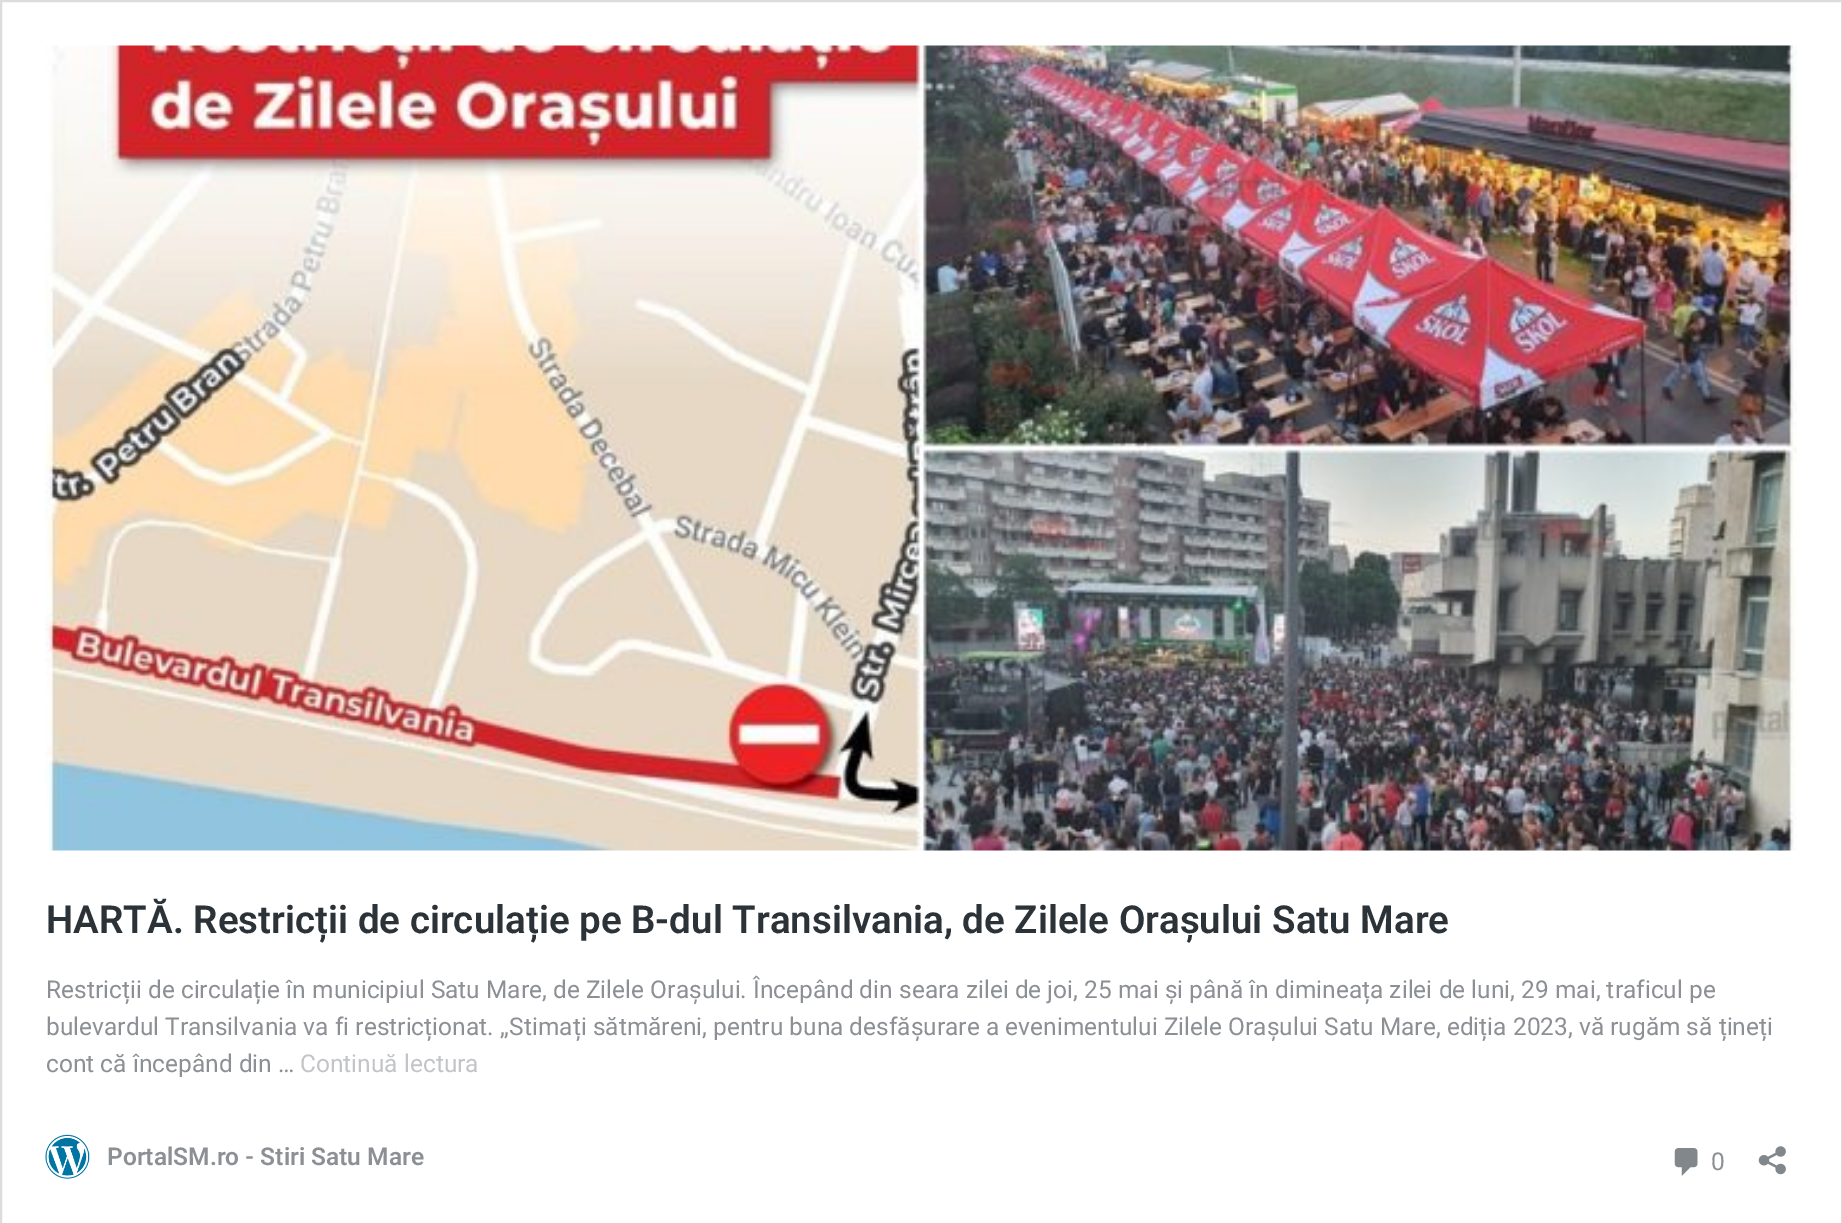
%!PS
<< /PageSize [1842 1223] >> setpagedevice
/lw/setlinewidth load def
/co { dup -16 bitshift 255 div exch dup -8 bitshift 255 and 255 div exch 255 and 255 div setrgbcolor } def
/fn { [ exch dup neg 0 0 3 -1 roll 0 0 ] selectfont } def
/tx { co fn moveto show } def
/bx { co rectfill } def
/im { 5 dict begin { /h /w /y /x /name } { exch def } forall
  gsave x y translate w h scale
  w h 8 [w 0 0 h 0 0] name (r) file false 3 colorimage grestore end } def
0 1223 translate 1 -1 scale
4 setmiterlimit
0 0 1842 1223 16#FFFFFF bx
16#DCDCDE co
2 lw
1 1 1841 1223 rectstroke
(media/1.raw) 45 45 1752 806 im
(media/2.raw) 45 1134 45 45 im
(media/3.raw) 1674 1148 24 28 im
(media/4.raw) 1758 1146 28 29 im
(HARTĂ. Restricții de circulație pe B-dul Transilvania, de Zilele Orașului Satu Mare) 46 933 /Roboto-SemiBold 38.5 16#2C3338 tx
(Restricții de circulație în municipiul Satu Mare, de Zilele Orașului. Începând din seara zilei de joi, 25 mai și până în dimineața zilei de luni, 29 mai, traficul pe) 46 998 /Roboto-Regular 24.5 16#8C8F94 tx
(bulevardul Transilvania va fi restricționat. ,,Stimați sătmăreni, pentru buna desfășurare a evenimentului Zilele Orașului Satu Mare, ediția 2023, vă rugăm să țineți) 46 1035 /Roboto-Regular 24.5 16#8C8F94 tx
(cont că începând din …) 46 1072 /Roboto-Regular 24.5 16#8C8F94 tx
(Continuă lectura) 300 1072 /Roboto-Regular 24.5 16#C3C4C7 tx
(PortalSM.ro - Stiri Satu Mare) 107 1165 /Roboto-SemiBold 24.5 16#8C8F94 tx
(0) 1711 1170 /Roboto-Regular 24.5 16#8C8F94 tx
showpage
